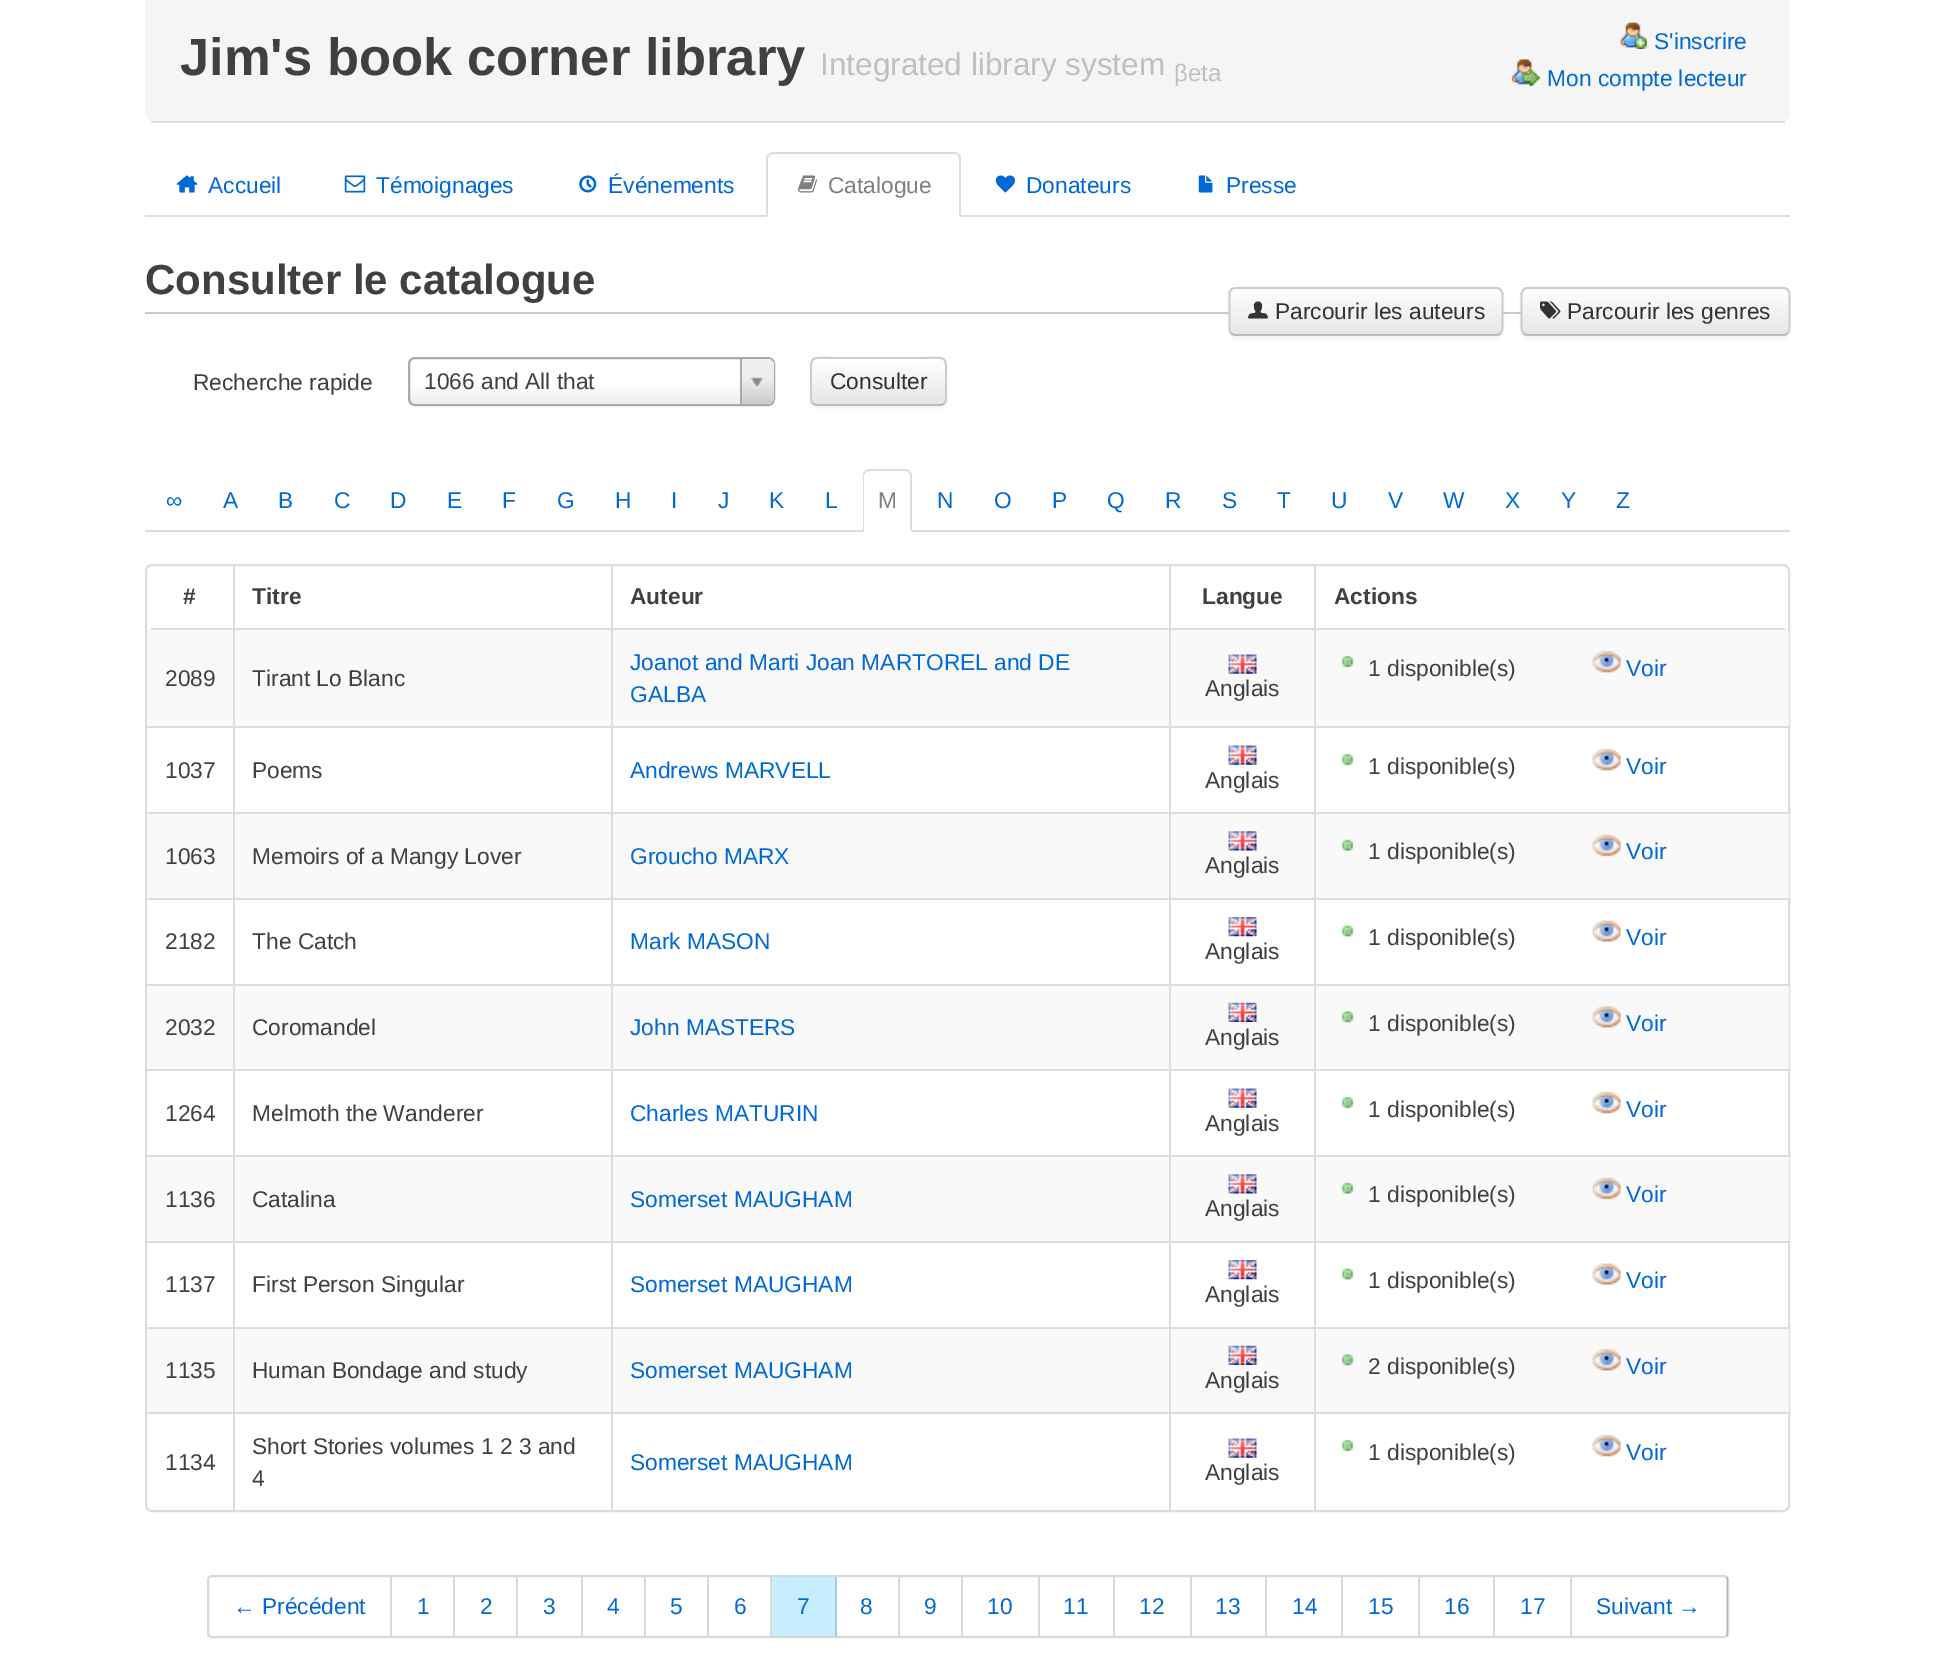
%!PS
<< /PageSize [1935 1667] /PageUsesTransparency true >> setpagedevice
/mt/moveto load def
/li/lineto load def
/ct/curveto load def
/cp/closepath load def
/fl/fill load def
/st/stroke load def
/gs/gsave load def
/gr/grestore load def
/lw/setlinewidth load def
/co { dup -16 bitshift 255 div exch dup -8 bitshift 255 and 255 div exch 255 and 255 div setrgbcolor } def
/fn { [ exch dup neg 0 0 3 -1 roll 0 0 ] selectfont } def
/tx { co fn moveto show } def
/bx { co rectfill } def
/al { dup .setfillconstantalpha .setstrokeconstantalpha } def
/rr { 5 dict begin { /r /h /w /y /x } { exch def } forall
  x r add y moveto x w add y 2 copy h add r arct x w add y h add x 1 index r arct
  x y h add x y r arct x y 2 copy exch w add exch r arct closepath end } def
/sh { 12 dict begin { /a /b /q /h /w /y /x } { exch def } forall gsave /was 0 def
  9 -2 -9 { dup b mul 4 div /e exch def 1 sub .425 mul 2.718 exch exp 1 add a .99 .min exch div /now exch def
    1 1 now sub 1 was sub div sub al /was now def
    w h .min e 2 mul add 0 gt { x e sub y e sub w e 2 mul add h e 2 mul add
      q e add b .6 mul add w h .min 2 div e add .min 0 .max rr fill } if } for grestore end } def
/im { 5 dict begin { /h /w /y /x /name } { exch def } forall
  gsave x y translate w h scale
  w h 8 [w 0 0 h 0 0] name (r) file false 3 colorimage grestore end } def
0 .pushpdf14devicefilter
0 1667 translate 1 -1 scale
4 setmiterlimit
0 0 1935 1667 16#FFFFFF bx
16#F5F5F5 co
145 0 mt 1790 0 li 1790 112 li 1790 118 1785 123 1779 123 ct 156 123 li 150 123 145 118 145 112 ct cp fl
151 121 1634 2 16#DDDDDD bx
(media/1.raw) 1620 22 27 27 im
(media/2.raw) 1512 59 28 27 im
145 215 1645 2 16#DDDDDD bx
(media/3.raw) 176 175 22 18 im
(media/4.raw) 344 175 22 18 im
(media/5.raw) 579 175 18 18 im
16#FFFFFF co
774 152 mt 954 152 li 958 152 961 155 961 159 ct 961 217 li 767 217 li 767 159 li 767 155 770 152 774 152 ct cp fl
16#DDDDDD co
774 154 mt 772 154 771 155 770 155 ct 768 154 li 772 152 li 956 152 li 959 154 li 958 155 li 957 154 956 154 954 154 ct cp fl
961 157 mt 961 217 li 959 215 li 959 159 li 959 158 958 156 958 155 ct 959 154 li cp fl
766 217 mt 766 157 li 768 154 li 770 155 li 768 158 li 768 215 li cp fl
(media/6.raw) 798 175 19 18 im
(media/7.raw) 995 175 20 18 im
(media/8.raw) 1198 175 15 18 im
145 312 1376 2 16#CACACA bx
16#000000 co
1229 289 274 49 7 2 .05 sh
gs
1229 287 274 49 7 rr clip newpath
gs 1229 289 mt 1503 289 li 1503 334 li 1229 334 li cp clip newpath
<< /ShadingType 2 /ColorSpace /DeviceRGB /Coords [1366 289 1366 334] /Extend [true true] /Function << /FunctionType 2 /Domain [0 1] /C0 [1 1 1] /C1 [.902 .902 .902] /N 1 >> >> shfill gr
gr
16#BBBBBB co
1.8 lw
1500.5 333.5 mt 1499.5 334.5 1498 335 1496 335 ct 1235.5 335 li 1234 335 1232.5 334.5 1231 333.5 ct st
16#CCCCCC co
1231 333.5 mt 1230 332 1229.5 330.5 1229.5 329 ct 1229.5 294 li 1229.5 292.5 1230 291 1231 289.5 ct 1232.5 288.5 1234 288 1235.5 288 ct 1496 288 li 1498 288 1499.5 288.5 1500.5 289.5 ct 1501.5 291 1502.5 292.5 1502.5 294 ct 1502.5 329 li 1502.5 330.5 1501.5 332 1500.5 333.5 ct st
(media/9.raw) 1247 301 22 18 im
16#000000 co
1521 289 269 49 7 2 .05 sh
gs
1521 287 269 49 7 rr clip newpath
gs 1521 289 mt 1790 289 li 1790 334 li 1521 334 li cp clip newpath
<< /ShadingType 2 /ColorSpace /DeviceRGB /Coords [1656 289 1656 334] /Extend [true true] /Function << /FunctionType 2 /Domain [0 1] /C0 [1 1 1] /C1 [.902 .902 .902] /N 1 >> >> shfill gr
gr
0.2 al
16#FFFFFF co
1528 290 mt 1783 290 li 1790 290 1788 304 1788 308 ct 1788 332 li 1789 331 1789 330 1789 329 ct 1789 294 li 1789 291 1787 289 1784 289 ct 1528 289 li 1526 289 1524 291 1523 293 ct 1524 291 1526 290 1528 290 ct cp fl
1 al
16#BBBBBB co
1787.5 333.5 mt 1786.5 334.5 1785 335 1783 335 ct 1528 335 li 1526 335 1524.5 334.5 1523.5 333.5 ct st
16#CCCCCC co
1523.5 333.5 mt 1522.5 332 1521.5 330.5 1521.5 329 ct 1521.5 294 li 1521.5 292.5 1522.5 291 1523.5 289.5 ct 1524.5 288.5 1526 288 1528 288 ct 1783 288 li 1785 288 1786.5 288.5 1787.5 289.5 ct 1788.5 291 1789.5 292.5 1789.5 294 ct 1789.5 329 li 1789.5 330.5 1788.5 332 1787.5 333.5 ct st
(media/10.raw) 1540 301 21 18 im
gs 410 359 364 45 5 rr clip newpath
<< /ShadingType 2 /ColorSpace /DeviceRGB /Coords [410 404 410 359] /Extend [true true] /Function << /FunctionType 3 /Domain [0 1] /Functions [<< /FunctionType 2 /Domain [0 1] /C0 [.933 .933 .933] /C1 [1 1 1] /N 1 >> << /FunctionType 2 /Domain [0 1] /C0 [1 1 1] /C1 [1 1 1] /N 1 >>] /Bounds [.5] /Encode [0 1 0 1] >> >> shfill gr
16#AAAAAA co
2 lw
409 358 365 47 6 rr st
gs 740 359 mt 767 359 li 771 359 774 362 774 366 ct 774 397 li 774 401 771 404 767 404 ct 740 404 li cp clip newpath
<< /ShadingType 2 /ColorSpace /DeviceRGB /Coords [742 404 742 359] /Extend [true true] /Function << /FunctionType 3 /Domain [0 1] /Functions [<< /FunctionType 2 /Domain [0 1] /C0 [.8 .8 .8] /C1 [.933 .933 .933] /N 1 >> << /FunctionType 2 /Domain [0 1] /C0 [.933 .933 .933] /C1 [.933 .933 .933] /N 1 >>] /Bounds [.6] /Encode [0 1 0 1] >> >> shfill gr
740 359 2 45 16#AAAAAA bx
(media/11.raw) 750 377 14 12 im
16#000000 co
810 359 137 49 7 2 .05 sh
16#F5F5F5 co
810 357 137 49 7 rr fl
gs
810 357 137 49 7 rr clip newpath
gs 810 359 mt 947 359 li 947 404 li 810 404 li cp clip newpath
<< /ShadingType 2 /ColorSpace /DeviceRGB /Coords [879 359 879 404] /Extend [true true] /Function << /FunctionType 2 /Domain [0 1] /C0 [1 1 1] /C1 [.902 .902 .902] /N 1 >> >> shfill gr
gr
16#BBBBBB co
1.8 lw
944 403.5 mt 943 404.5 941.5 405 940 405 ct 817 405 li 815.5 405 814 404.5 813 403.5 ct st
16#CCCCCC co
813 403.5 mt 810.5 400.5 811 396.5 811 393 ct 811 381.5 li 811 353.5 808 358 837.5 358 ct 919.5 358 li 949 358 946 353.5 946 381.5 ct 946 393 li 946 396.5 946.5 400.5 944 403.5 ct st
145 530 1645 2 16#DDDDDD bx
16#FFFFFF co
870 469 mt 905 469 li 909 469 912 472 912 476 ct 912 532 li 863 532 li 863 476 li 863 472 866 469 870 469 ct cp fl
16#DDDDDD co
870 469 mt 868 469 866 470 865 471 ct 866 472 li 867 471 869 471 870 471 ct 905 471 li 906 471 908 471 908 472 ct 910 471 li 909 470 907 469 905 469 ct cp fl
912 474 mt 912 532 li 910 530 li 910 476 li 910 474 909 473 908 472 ct 910 471 li cp 865 471 mt 864 472 863 474 863 476 ct 863 532 li 865 530 li 864 530 li 864 475 li 866 472 li cp fl
2 lw
146 565 1643 946 6 rr st
233 565 2 63 16#DDDDDD bx
611 565 2 63 16#DDDDDD bx
1169 565 2 63 16#DDDDDD bx
1314 565 2 63 16#DDDDDD bx
16#F9F9F9 co
154 628 mt 233 628 li 233 726 li 147 726 li 147 635 li 147 631 150 628 154 628 ct cp fl
151 628 1163 2 16#DDDDDD bx
235 630 376 96 16#F9F9F9 bx
233 628 2 98 16#DDDDDD bx
613 630 556 96 16#F9F9F9 bx
611 628 2 98 16#DDDDDD bx
1171 630 143 96 16#F9F9F9 bx
1169 628 2 98 16#DDDDDD bx
(media/12.raw) 1228 654 29 20 im
16#F9F9F9 co
1314 628 mt 1782 628 li 1786 628 1789 631 1789 635 ct 1789 726 li 1314 726 li cp fl
1314 628 471 2 16#DDDDDD bx
1314 628 2 98 16#DDDDDD bx
(media/13.raw) 1341 655 13 13 im
(media/14.raw) 1592 650 29 23 im
147 726 1642 2 16#DDDDDD bx
233 726 2 86 16#DDDDDD bx
611 726 2 86 16#DDDDDD bx
1169 726 2 86 16#DDDDDD bx
(media/15.raw) 1228 745 29 20 im
1314 726 2 86 16#DDDDDD bx
(media/16.raw) 1341 753 13 13 im
(media/17.raw) 1592 748 29 23 im
147 814 86 84 16#F9F9F9 bx
147 812 1642 2 16#DDDDDD bx
235 814 376 84 16#F9F9F9 bx
233 812 2 86 16#DDDDDD bx
613 814 556 84 16#F9F9F9 bx
611 812 2 86 16#DDDDDD bx
1171 814 143 84 16#F9F9F9 bx
1169 812 2 86 16#DDDDDD bx
(media/18.raw) 1228 831 29 20 im
1316 814 473 84 16#F9F9F9 bx
1314 812 2 86 16#DDDDDD bx
(media/19.raw) 1341 839 13 12 im
(media/20.raw) 1592 834 29 23 im
147 898 1642 2 16#DDDDDD bx
233 898 2 86 16#DDDDDD bx
611 898 2 86 16#DDDDDD bx
1169 898 2 86 16#DDDDDD bx
(media/21.raw) 1228 917 29 20 im
1314 898 2 86 16#DDDDDD bx
(media/22.raw) 1341 925 13 12 im
(media/23.raw) 1592 920 29 22 im
147 986 86 83 16#F9F9F9 bx
147 984 1642 2 16#DDDDDD bx
235 986 376 83 16#F9F9F9 bx
233 984 2 85 16#DDDDDD bx
613 986 556 83 16#F9F9F9 bx
611 984 2 85 16#DDDDDD bx
1171 986 143 83 16#F9F9F9 bx
1169 984 2 85 16#DDDDDD bx
(media/24.raw) 1228 1002 29 20 im
1316 986 473 83 16#F9F9F9 bx
1314 984 2 85 16#DDDDDD bx
(media/25.raw) 1341 1011 13 12 im
(media/26.raw) 1592 1005 29 23 im
147 1069 1642 2 16#DDDDDD bx
233 1069 2 86 16#DDDDDD bx
611 1069 2 86 16#DDDDDD bx
1169 1069 2 86 16#DDDDDD bx
(media/15.raw) 1228 1088 29 20 im
1314 1069 2 86 16#DDDDDD bx
(media/16.raw) 1341 1096 13 13 im
(media/17.raw) 1592 1091 29 23 im
147 1157 86 84 16#F9F9F9 bx
147 1155 1642 2 16#DDDDDD bx
235 1157 376 84 16#F9F9F9 bx
233 1155 2 86 16#DDDDDD bx
613 1157 556 84 16#F9F9F9 bx
611 1155 2 86 16#DDDDDD bx
1171 1157 143 84 16#F9F9F9 bx
1169 1155 2 86 16#DDDDDD bx
(media/18.raw) 1228 1174 29 20 im
1316 1157 473 84 16#F9F9F9 bx
1314 1155 2 86 16#DDDDDD bx
(media/19.raw) 1341 1182 13 12 im
(media/20.raw) 1592 1177 29 23 im
147 1241 1642 2 16#DDDDDD bx
233 1241 2 86 16#DDDDDD bx
611 1241 2 86 16#DDDDDD bx
1169 1241 2 86 16#DDDDDD bx
(media/21.raw) 1228 1260 29 20 im
1314 1241 2 86 16#DDDDDD bx
(media/22.raw) 1341 1268 13 12 im
(media/23.raw) 1592 1263 29 22 im
147 1329 86 83 16#F9F9F9 bx
147 1327 1642 2 16#DDDDDD bx
235 1329 376 83 16#F9F9F9 bx
233 1327 2 85 16#DDDDDD bx
613 1329 556 83 16#F9F9F9 bx
611 1327 2 85 16#DDDDDD bx
1171 1329 143 83 16#F9F9F9 bx
1169 1327 2 85 16#DDDDDD bx
(media/24.raw) 1228 1345 29 20 im
1316 1329 473 83 16#F9F9F9 bx
1314 1327 2 85 16#DDDDDD bx
(media/25.raw) 1341 1354 13 12 im
(media/26.raw) 1592 1348 29 23 im
147 1412 1642 2 16#DDDDDD bx
233 1412 2 98 16#DDDDDD bx
611 1412 2 98 16#DDDDDD bx
1169 1412 2 98 16#DDDDDD bx
(media/15.raw) 1228 1438 29 20 im
1314 1412 2 98 16#DDDDDD bx
(media/16.raw) 1341 1439 13 13 im
(media/17.raw) 1592 1434 29 23 im
0.15 al
16#000000 co
208 1576 1520 61 4 rr st
1 al
390 1577 2 59 16#D9D9D9 bx
453 1577 2 59 16#D9D9D9 bx
516 1577 2 59 16#D9D9D9 bx
581 1577 2 59 16#D9D9D9 bx
644 1577 2 59 16#D9D9D9 bx
707 1577 2 59 16#D9D9D9 bx
770 1577 2 59 16#D9D9D9 bx
772 1577 63 59 16#C7EEFE bx
835 1577 2 59 16#A9CAD8 bx
898 1577 2 59 16#D9D9D9 bx
961 1577 2 59 16#D9D9D9 bx
1038 1577 2 59 16#D9D9D9 bx
1113 1577 2 59 16#D9D9D9 bx
1190 1577 2 59 16#D9D9D9 bx
1265 1577 2 59 16#D9D9D9 bx
1341 1577 2 59 16#D9D9D9 bx
1418 1577 2 59 16#D9D9D9 bx
1493 1577 2 59 16#D9D9D9 bx
1570 1577 2 59 16#D9D9D9 bx
0.15 al
1726 1577 2 59 16#000000 bx
1 al
(Jim's book corner library) 180 75 /LiberationSans-Bold 52.5 16#404040 tx
(Integrated library system) 820 75 /LiberationSans-Regular 31.5 16#BFBFBF tx
(βeta) 1174 81 /LiberationSans-Regular 24 16#BFBFBF tx
(S'inscrire) 1654 49 /LiberationSans-Regular 22.75 16#0069D6 tx
(Mon compte lecteur) 1547 86 /LiberationSans-Regular 22.75 16#0069D6 tx
(Accueil) 208 193 /LiberationSans-Regular 22.75 16#0069D6 tx
(Témoignages) 376 193 /LiberationSans-Regular 22.75 16#0069D6 tx
(Événements) 608 193 /LiberationSans-Regular 22.75 16#0069D6 tx
(Catalogue) 828 193 /LiberationSans-Regular 22.75 16#808080 tx
(Donateurs) 1026 193 /LiberationSans-Regular 22.75 16#0069D6 tx
(Presse) 1226 193 /LiberationSans-Regular 22.75 16#0069D6 tx
(Consulter le catalogue) 145 294 /LiberationSans-Bold 42 16#404040 tx
(Parcourir les auteurs) 1275 319 /LiberationSans-Regular 22.75 16#333333 tx
(Parcourir les genres) 1567 319 /LiberationSans-Regular 22.75 16#333333 tx
(Recherche rapide) 193 390 /LiberationSans-Regular 22.75 16#404040 tx
(1066 and All that) 424 389 /LiberationSans-Regular 22.75 16#404040 tx
(Consulter) 830 389 /LiberationSans-Regular 22.75 16#333333 tx
(∞) 166 508 /LiberationSans-Regular 22.75 16#0069D6 tx
(A) 223 508 /LiberationSans-Regular 22.75 16#0069D6 tx
(B) 278 508 /LiberationSans-Regular 22.75 16#0069D6 tx
(C) 334 508 /LiberationSans-Regular 22.75 16#0069D6 tx
(D) 390 508 /LiberationSans-Regular 22.75 16#0069D6 tx
(E) 447 508 /LiberationSans-Regular 22.75 16#0069D6 tx
(F) 502 508 /LiberationSans-Regular 22.75 16#0069D6 tx
(G) 557 508 /LiberationSans-Regular 22.75 16#0069D6 tx
(H) 615 508 /LiberationSans-Regular 22.75 16#0069D6 tx
(I) 671 508 /LiberationSans-Regular 22.75 16#0069D6 tx
(J) 718 508 /LiberationSans-Regular 22.75 16#0069D6 tx
(K) 769 508 /LiberationSans-Regular 22.75 16#0069D6 tx
(L) 825 508 /LiberationSans-Regular 22.75 16#0069D6 tx
(M) 878 508 /LiberationSans-Regular 22.75 16#808080 tx
(N) 937 508 /LiberationSans-Regular 22.75 16#0069D6 tx
(O) 994 508 /LiberationSans-Regular 22.75 16#0069D6 tx
(P) 1052 508 /LiberationSans-Regular 22.75 16#0069D6 tx
(Q) 1107 508 /LiberationSans-Regular 22.75 16#0069D6 tx
(R) 1165 508 /LiberationSans-Regular 22.75 16#0069D6 tx
(S) 1222 508 /LiberationSans-Regular 22.75 16#0069D6 tx
(T) 1277 508 /LiberationSans-Regular 22.75 16#0069D6 tx
(U) 1331 508 /LiberationSans-Regular 22.75 16#0069D6 tx
(V) 1388 508 /LiberationSans-Regular 22.75 16#0069D6 tx
(W) 1443 508 /LiberationSans-Regular 22.75 16#0069D6 tx
(X) 1505 508 /LiberationSans-Regular 22.75 16#0069D6 tx
(Y) 1561 508 /LiberationSans-Regular 22.75 16#0069D6 tx
(Z) 1616 508 /LiberationSans-Regular 22.75 16#0069D6 tx
(#) 183 604 /LiberationSans-Bold 22.75 16#404040 tx
(Titre) 252 604 /LiberationSans-Bold 22.75 16#404040 tx
(Auteur) 630 604 /LiberationSans-Bold 22.75 16#404040 tx
(Langue) 1202 604 /LiberationSans-Bold 22.75 16#404040 tx
(Actions) 1334 604 /LiberationSans-Bold 22.75 16#404040 tx
(2089) 165 686 /LiberationSans-Regular 22.75 16#404040 tx
(Tirant Lo Blanc) 252 686 /LiberationSans-Regular 22.75 16#404040 tx
(Joanot and Marti Joan MARTOREL and DE) 630 670 /LiberationSans-Regular 22.75 16#0069D6 tx
(GALBA) 630 702 /LiberationSans-Regular 22.75 16#0069D6 tx
(Anglais) 1205 696 /LiberationSans-Regular 22.75 16#404040 tx
(1 disponible\(s\)) 1368 676 /LiberationSans-Regular 22.75 16#404040 tx
(Voir) 1626 676 /LiberationSans-Regular 22.75 16#0069D6 tx
(1037) 165 778 /LiberationSans-Regular 22.75 16#404040 tx
(Poems) 252 778 /LiberationSans-Regular 22.75 16#404040 tx
(Andrews MARVELL) 630 778 /LiberationSans-Regular 22.75 16#0069D6 tx
(Anglais) 1205 788 /LiberationSans-Regular 22.75 16#404040 tx
(1 disponible\(s\)) 1368 774 /LiberationSans-Regular 22.75 16#404040 tx
(Voir) 1626 774 /LiberationSans-Regular 22.75 16#0069D6 tx
(1063) 165 864 /LiberationSans-Regular 22.75 16#404040 tx
(Memoirs of a Mangy Lover) 252 864 /LiberationSans-Regular 22.75 16#404040 tx
(Groucho MARX) 630 864 /LiberationSans-Regular 22.75 16#0069D6 tx
(Anglais) 1205 873 /LiberationSans-Regular 22.75 16#404040 tx
(1 disponible\(s\)) 1368 859 /LiberationSans-Regular 22.75 16#404040 tx
(Voir) 1626 859 /LiberationSans-Regular 22.75 16#0069D6 tx
(2182) 165 949 /LiberationSans-Regular 22.75 16#404040 tx
(The Catch) 252 949 /LiberationSans-Regular 22.75 16#404040 tx
(Mark MASON) 630 949 /LiberationSans-Regular 22.75 16#0069D6 tx
(Anglais) 1205 959 /LiberationSans-Regular 22.75 16#404040 tx
(1 disponible\(s\)) 1368 945 /LiberationSans-Regular 22.75 16#404040 tx
(Voir) 1626 945 /LiberationSans-Regular 22.75 16#0069D6 tx
(2032) 165 1035 /LiberationSans-Regular 22.75 16#404040 tx
(Coromandel) 252 1035 /LiberationSans-Regular 22.75 16#404040 tx
(John MASTERS) 630 1035 /LiberationSans-Regular 22.75 16#0069D6 tx
(Anglais) 1205 1045 /LiberationSans-Regular 22.75 16#404040 tx
(1 disponible\(s\)) 1368 1031 /LiberationSans-Regular 22.75 16#404040 tx
(Voir) 1626 1031 /LiberationSans-Regular 22.75 16#0069D6 tx
(1264) 165 1121 /LiberationSans-Regular 22.75 16#404040 tx
(Melmoth the Wanderer) 252 1121 /LiberationSans-Regular 22.75 16#404040 tx
(Charles MATURIN) 630 1121 /LiberationSans-Regular 22.75 16#0069D6 tx
(Anglais) 1205 1131 /LiberationSans-Regular 22.75 16#404040 tx
(1 disponible\(s\)) 1368 1117 /LiberationSans-Regular 22.75 16#404040 tx
(Voir) 1626 1117 /LiberationSans-Regular 22.75 16#0069D6 tx
(1136) 165 1207 /LiberationSans-Regular 22.75 16#404040 tx
(Catalina) 252 1207 /LiberationSans-Regular 22.75 16#404040 tx
(Somerset MAUGHAM) 630 1207 /LiberationSans-Regular 22.75 16#0069D6 tx
(Anglais) 1205 1216 /LiberationSans-Regular 22.75 16#404040 tx
(1 disponible\(s\)) 1368 1202 /LiberationSans-Regular 22.75 16#404040 tx
(Voir) 1626 1202 /LiberationSans-Regular 22.75 16#0069D6 tx
(1137) 165 1292 /LiberationSans-Regular 22.75 16#404040 tx
(First Person Singular) 252 1292 /LiberationSans-Regular 22.75 16#404040 tx
(Somerset MAUGHAM) 630 1292 /LiberationSans-Regular 22.75 16#0069D6 tx
(Anglais) 1205 1302 /LiberationSans-Regular 22.75 16#404040 tx
(1 disponible\(s\)) 1368 1288 /LiberationSans-Regular 22.75 16#404040 tx
(Voir) 1626 1288 /LiberationSans-Regular 22.75 16#0069D6 tx
(1135) 165 1378 /LiberationSans-Regular 22.75 16#404040 tx
(Human Bondage and study) 252 1378 /LiberationSans-Regular 22.75 16#404040 tx
(Somerset MAUGHAM) 630 1378 /LiberationSans-Regular 22.75 16#0069D6 tx
(Anglais) 1205 1388 /LiberationSans-Regular 22.75 16#404040 tx
(2 disponible\(s\)) 1368 1374 /LiberationSans-Regular 22.75 16#404040 tx
(Voir) 1626 1374 /LiberationSans-Regular 22.75 16#0069D6 tx
(1134) 165 1470 /LiberationSans-Regular 22.75 16#404040 tx
(Short Stories volumes 1 2 3 and) 252 1454 /LiberationSans-Regular 22.75 16#404040 tx
(4) 252 1486 /LiberationSans-Regular 22.75 16#404040 tx
(Somerset MAUGHAM) 630 1470 /LiberationSans-Regular 22.75 16#0069D6 tx
(Anglais) 1205 1480 /LiberationSans-Regular 22.75 16#404040 tx
(1 disponible\(s\)) 1368 1460 /LiberationSans-Regular 22.75 16#404040 tx
(Voir) 1626 1460 /LiberationSans-Regular 22.75 16#0069D6 tx
(← Précédent) 233 1614 /LiberationSans-Regular 22.75 16#0069D6 tx
(1) 417 1614 /LiberationSans-Regular 22.75 16#0069D6 tx
(2) 480 1614 /LiberationSans-Regular 22.75 16#0069D6 tx
(3) 543 1614 /LiberationSans-Regular 22.75 16#0069D6 tx
(4) 607 1614 /LiberationSans-Regular 22.75 16#0069D6 tx
(5) 670 1614 /LiberationSans-Regular 22.75 16#0069D6 tx
(6) 734 1614 /LiberationSans-Regular 22.75 16#0069D6 tx
(7) 797 1614 /LiberationSans-Regular 22.75 16#0069D6 tx
(8) 860 1614 /LiberationSans-Regular 22.75 16#0069D6 tx
(9) 924 1614 /LiberationSans-Regular 22.75 16#0069D6 tx
(10) 987 1614 /LiberationSans-Regular 22.75 16#0069D6 tx
(11) 1063 1614 /LiberationSans-Regular 22.75 16#0069D6 tx
(12) 1139 1614 /LiberationSans-Regular 22.75 16#0069D6 tx
(13) 1215 1614 /LiberationSans-Regular 22.75 16#0069D6 tx
(14) 1292 1614 /LiberationSans-Regular 22.75 16#0069D6 tx
(15) 1368 1614 /LiberationSans-Regular 22.75 16#0069D6 tx
(16) 1444 1614 /LiberationSans-Regular 22.75 16#0069D6 tx
(17) 1520 1614 /LiberationSans-Regular 22.75 16#0069D6 tx
(Suivant →) 1596 1614 /LiberationSans-Regular 22.75 16#0069D6 tx
.poppdf14devicefilter showpage
